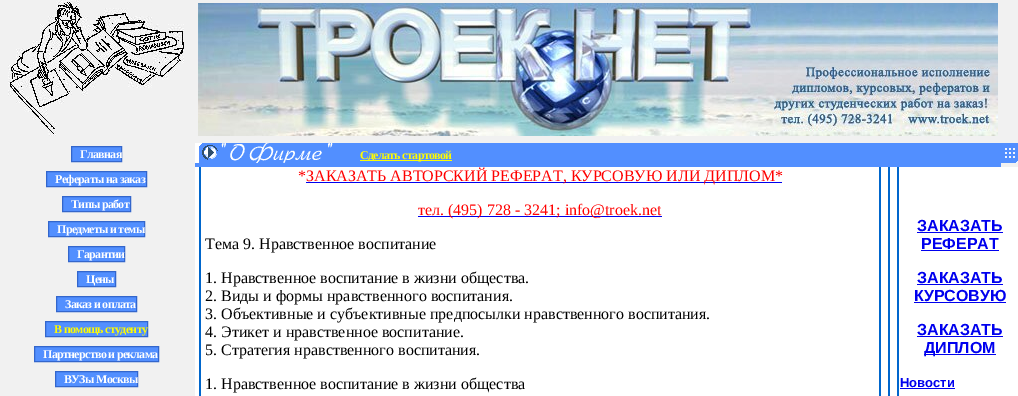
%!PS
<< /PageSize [1018 396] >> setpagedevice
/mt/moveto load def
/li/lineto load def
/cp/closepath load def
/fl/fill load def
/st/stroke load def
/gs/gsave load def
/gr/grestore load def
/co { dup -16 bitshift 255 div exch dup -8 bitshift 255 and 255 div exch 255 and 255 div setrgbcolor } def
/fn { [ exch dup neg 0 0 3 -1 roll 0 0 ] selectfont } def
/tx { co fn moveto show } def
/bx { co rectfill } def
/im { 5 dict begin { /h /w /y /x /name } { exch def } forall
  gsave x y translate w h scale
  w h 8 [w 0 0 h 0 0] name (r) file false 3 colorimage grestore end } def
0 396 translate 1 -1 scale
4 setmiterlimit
0 0 1018 396 16#F1F1F1 bx
(media/1.raw) 8 0 176 136 im
16#528FFF co
71.5 146.5 mt 121.5 146.5 li 121.5 161.5 li 71.5 161.5 li cp gs fl gr
16#3366CC co
st
16#528FFF co
46.5 171.5 mt 146.5 171.5 li 146.5 186.5 li 46.5 186.5 li cp gs fl gr
16#3366CC co
st
16#528FFF co
62.5 196.5 mt 130.5 196.5 li 130.5 211.5 li 62.5 211.5 li cp gs fl gr
16#3366CC co
st
16#528FFF co
48.5 221.5 mt 144.5 221.5 li 144.5 236.5 li 48.5 236.5 li cp gs fl gr
16#3366CC co
st
16#528FFF co
68.5 246.5 mt 124.5 246.5 li 124.5 261.5 li 68.5 261.5 li cp gs fl gr
16#3366CC co
st
16#528FFF co
77.5 271.5 mt 115.5 271.5 li 115.5 286.5 li 77.5 286.5 li cp gs fl gr
16#3366CC co
st
16#528FFF co
56.5 296.5 mt 136.5 296.5 li 136.5 311.5 li 56.5 311.5 li cp gs fl gr
16#3366CC co
st
16#528FFF co
45.5 321.5 mt 147.5 321.5 li 147.5 336.5 li 45.5 336.5 li cp gs fl gr
16#3366CC co
st
16#528FFF co
34.5 346.5 mt 158.5 346.5 li 158.5 361.5 li 34.5 361.5 li cp gs fl gr
16#3366CC co
st
16#528FFF co
55.5 371.5 mt 137.5 371.5 li 137.5 386.5 li 55.5 386.5 li cp gs fl gr
16#3366CC co
st
(media/2.raw) 198 3 800 133 im
195 143 806 24 16#528FFF bx
(media/3.raw) 195 143 138 20 im
(media/4.raw) 1001 143 17 20 im
360 160 92 1 16#FFFC00 bx
195 167 823 229 16#FFFFFF bx
199 167 2 229 16#0066CC bx
306 182 476 1 16#0000EE bx
418 216 244 1 16#0000EE bx
(media/5.raw) 879 167 20 229 im
917 232 86 1 16#0000EE bx
921 250 78 1 16#0000EE bx
917 284 86 1 16#0000EE bx
914 302 92 1 16#0000EE bx
917 336 86 1 16#0000EE bx
924 354 72 1 16#0000EE bx
900 388 55 1 16#0000EE bx
/LiberationSerif-Bold 12 fn
16#FFFFFF co
80 158 mt -.7 0 (Главная) ashow
55 183 mt -.7 0 (Рефераты на заказ) ashow
71 208 mt -.7 0 (Типы работ) ashow
57 233 mt -.7 0 (Предметы и темы) ashow
77 258 mt -.7 0 (Гарантии) ashow
86 283 mt -.7 0 (Цены) ashow
65 308 mt -.7 0 (Заказ и оплата) ashow
16#FFFC00 co
54 333 mt -.7 0 (В помощь студенту) ashow
16#FFFFFF co
43 358 mt -.7 0 (Партнерство и реклама) ashow
64 383 mt -.7 0 (ВУЗы Москвы) ashow
16#FFFC00 co
360 159 mt -.7 0 (Сделать стартовой) ashow
(*) 298 181 /LiberationSerif-Regular 16 16#FF0000 tx
(ЗАКАЗАТЬ АВТОРСКИЙ РЕФЕРАТ, КУРСОВУЮ ИЛИ ДИПЛОМ*) 306 181 /LiberationSerif-Regular 16 16#FF0000 tx
(тел. \(495\) 728 - 3241; info@troek.net) 418 215 /LiberationSerif-Regular 16 16#FF0000 tx
(Тема 9. Нравственное воспитание) 205 249 /LiberationSerif-Regular 16 16#000000 tx
(1. Нравственное воспитание в жизни общества.) 205 283 /LiberationSerif-Regular 16 16#000000 tx
(2. Виды и формы нравственного воспитания.) 205 301 /LiberationSerif-Regular 16 16#000000 tx
(3. Объективные и субъективные предпосылки нравственного воспитания.) 205 319 /LiberationSerif-Regular 16 16#000000 tx
(4. Этикет и нравственное воспитание.) 205 337 /LiberationSerif-Regular 16 16#000000 tx
(5. Стратегия нравственного воспитания.) 205 355 /LiberationSerif-Regular 16 16#000000 tx
(1. Нравственное воспитание в жизни общества) 205 389 /LiberationSerif-Regular 16 16#000000 tx
(ЗАКАЗАТЬ) 917 231 /LiberationSans-Bold 16 16#0000EE tx
(РЕФЕРАТ) 921 249 /LiberationSans-Bold 16 16#0000EE tx
(ЗАКАЗАТЬ) 917 283 /LiberationSans-Bold 16 16#0000EE tx
(КУРСОВУЮ) 914 301 /LiberationSans-Bold 16 16#0000EE tx
(ЗАКАЗАТЬ) 917 335 /LiberationSans-Bold 16 16#0000EE tx
(ДИПЛОМ) 924 353 /LiberationSans-Bold 16 16#0000EE tx
(Новости) 900 387 /LiberationSans-Bold 13 16#0000EE tx
showpage
